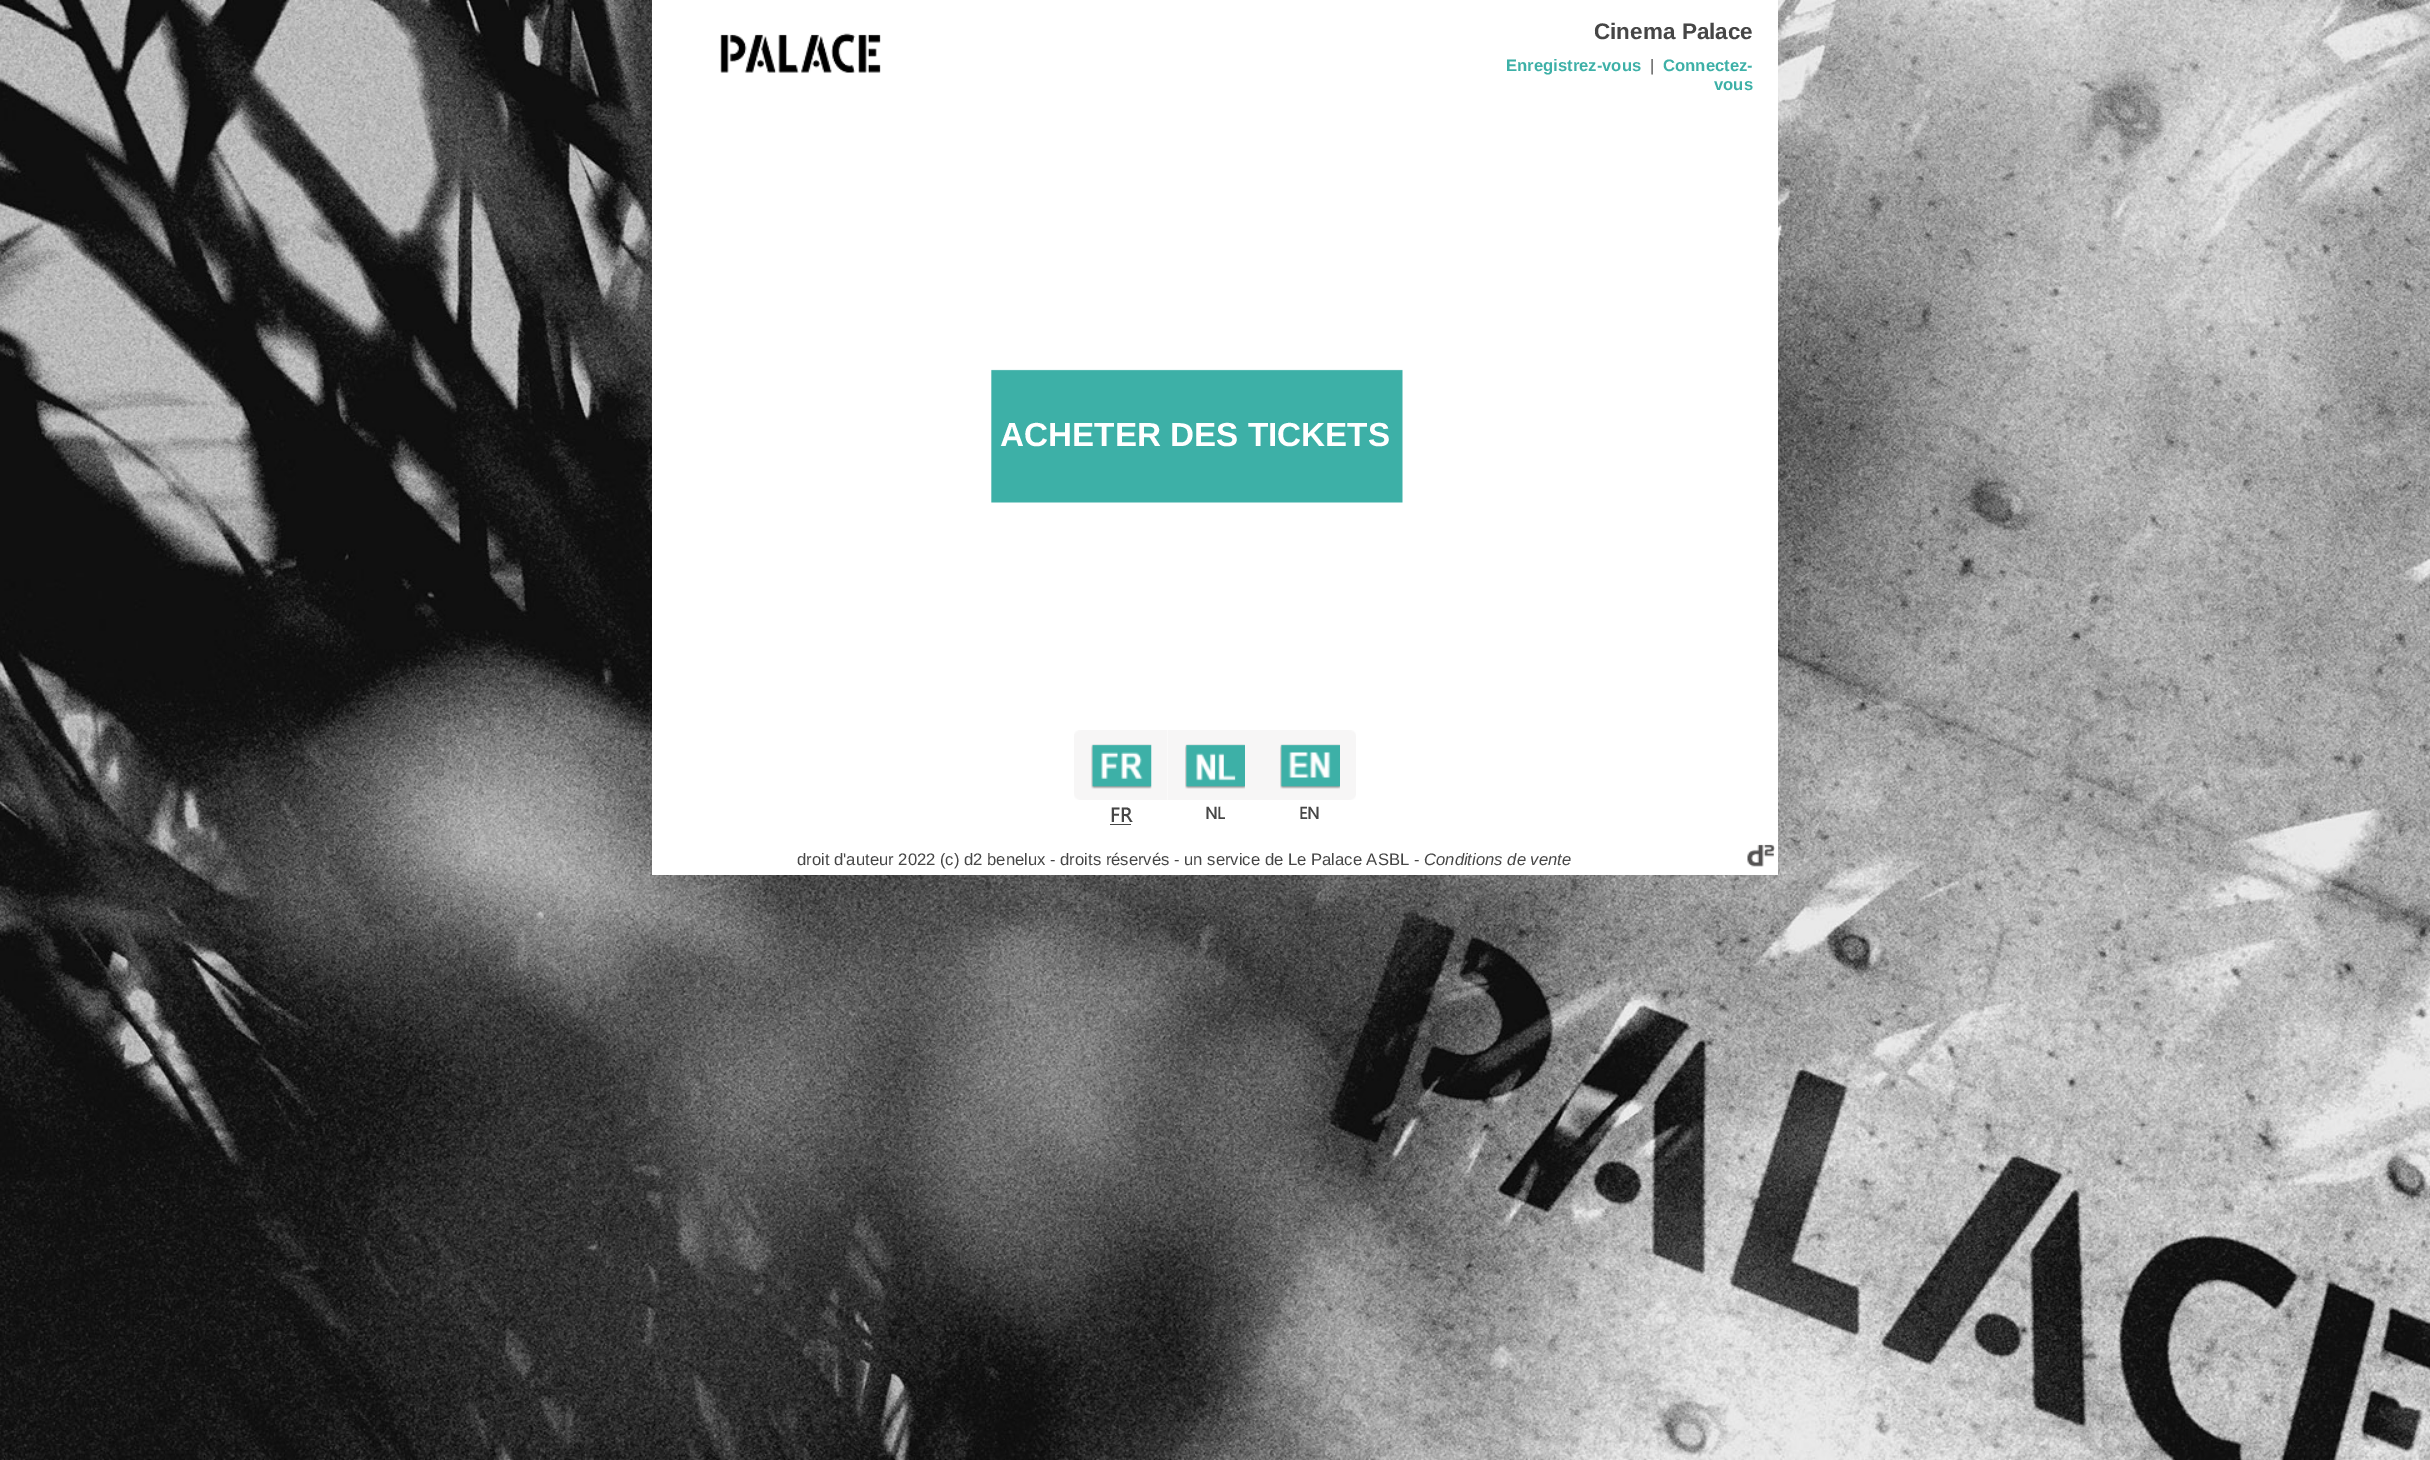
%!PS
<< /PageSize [2430 1460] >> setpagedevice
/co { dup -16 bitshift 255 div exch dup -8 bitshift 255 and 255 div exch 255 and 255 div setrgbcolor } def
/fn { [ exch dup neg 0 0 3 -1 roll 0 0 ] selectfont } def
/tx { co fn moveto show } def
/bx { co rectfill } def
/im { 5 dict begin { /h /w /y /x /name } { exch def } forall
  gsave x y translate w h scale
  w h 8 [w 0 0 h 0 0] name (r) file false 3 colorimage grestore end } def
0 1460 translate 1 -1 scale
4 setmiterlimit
0 0 2430 1460 16#FFFFFF bx
(media/1.raw) 0 0 2430 1460 im
652 0 1126 875 16#FFFFFF bx
(media/2.raw) 720 33 161 40 im
(media/3.raw) 991 369 412 134 im
(media/4.raw) 1074 730 94 70 im
(media/5.raw) 1091 744 61 45 im
1110 824 21 1 16#464646 bx
1168 730 95 70 16#F7F6F6 bx
(media/6.raw) 1185 744 60 45 im
(media/7.raw) 1263 730 93 70 im
(media/8.raw) 1280 744 60 45 im
(media/9.raw) 1747 844 29 23 im
(Cinema Palace) 1594 39 /LiberationSans-Bold 22.5 16#464646 tx
(Enregistrez-vous) 1506 71 /LiberationSans-Bold 16.65 16#3DB0A7 tx
(|) 1650 71 /LiberationSans-Regular 16.65 16#464646 tx
(Connectez-) 1663 71 /LiberationSans-Bold 16.65 16#3DB0A7 tx
(vous) 1714 90 /LiberationSans-Bold 16.65 16#3DB0A7 tx
(ACHETER DES TICKETS) 1000 446 /LiberationSans-Bold 33.25 16#FFFFFF tx
(FR) 1110 822 /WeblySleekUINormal-Bold 20 16#464646 tx
(NL) 1205 819 /WeblySleekUINormal-Bold 16.65 16#464646 tx
(EN) 1299 819 /WeblySleekUINormal-Bold 16.65 16#464646 tx
(droit d'auteur 2022 \(c\) d2 benelux - droits réservés - un service de Le Palace ASBL -) 797 865 /LiberationSans-Regular 16.65 16#464646 tx
(Conditions de vente) 1424 865 /LiberationSans-Italic 16.65 16#464646 tx
showpage
